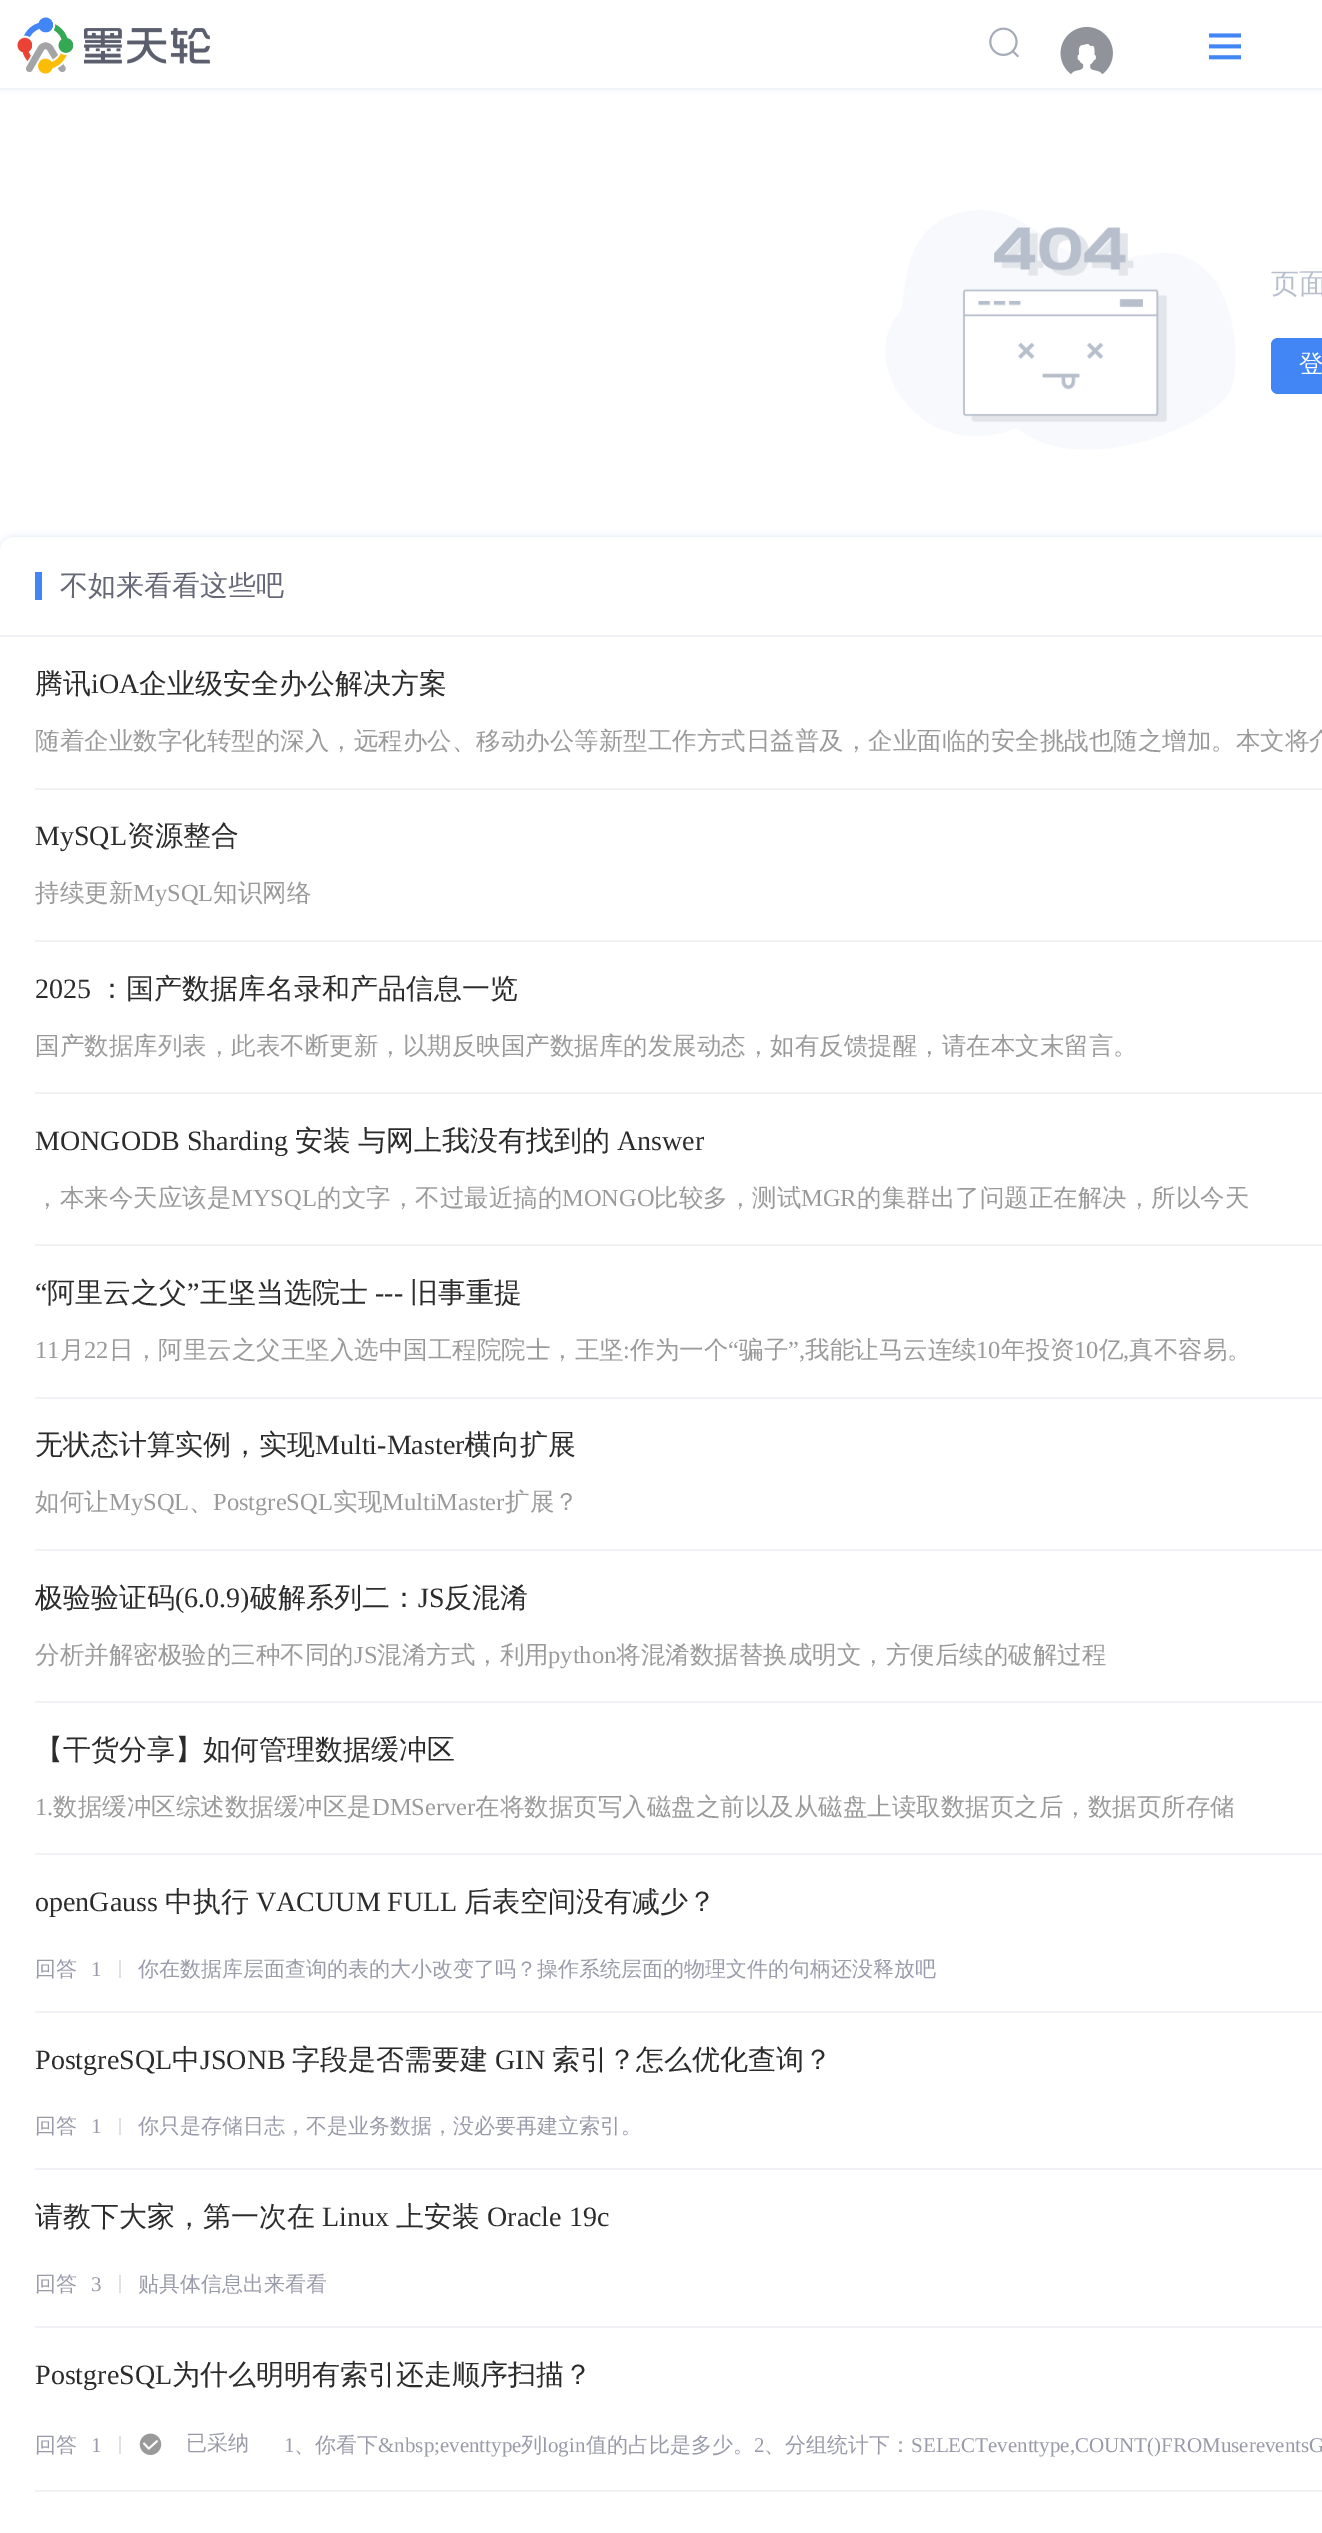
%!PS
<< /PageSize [1322 2533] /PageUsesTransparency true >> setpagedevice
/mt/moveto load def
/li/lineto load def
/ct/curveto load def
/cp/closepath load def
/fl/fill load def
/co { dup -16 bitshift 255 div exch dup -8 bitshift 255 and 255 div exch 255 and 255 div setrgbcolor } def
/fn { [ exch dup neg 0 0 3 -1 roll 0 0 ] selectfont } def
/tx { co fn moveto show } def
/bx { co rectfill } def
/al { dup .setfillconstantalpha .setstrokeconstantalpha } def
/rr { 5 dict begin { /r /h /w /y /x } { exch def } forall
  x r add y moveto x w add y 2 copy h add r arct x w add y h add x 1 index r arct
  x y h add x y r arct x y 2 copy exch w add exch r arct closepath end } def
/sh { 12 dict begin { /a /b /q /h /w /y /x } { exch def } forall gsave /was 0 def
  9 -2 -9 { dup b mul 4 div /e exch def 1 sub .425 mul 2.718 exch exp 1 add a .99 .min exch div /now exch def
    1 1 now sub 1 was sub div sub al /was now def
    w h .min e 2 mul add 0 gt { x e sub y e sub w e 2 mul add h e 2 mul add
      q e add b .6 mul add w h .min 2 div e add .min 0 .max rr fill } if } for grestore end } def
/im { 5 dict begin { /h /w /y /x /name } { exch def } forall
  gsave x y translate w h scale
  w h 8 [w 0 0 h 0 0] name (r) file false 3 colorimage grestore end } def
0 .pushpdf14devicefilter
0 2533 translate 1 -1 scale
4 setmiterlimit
0 0 1322 2533 16#FFFFFF bx
16#064399 co
0 0 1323 88 0 3.5 .14 sh
0 0 1322 88 16#FFFFFF bx
(media/1.raw) 17 17 193 57 im
(media/2.raw) 989 27 30 31 im
(media/3.raw) 1060 26 53 49 im
(media/4.raw) 1208 33 34 27 im
(media/5.raw) 885 210 351 240 im
16#4285F4 co
1278 338 mt 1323 338 li 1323 394 li 1278 394 li 1274 394 1271 391 1271 387 ct 1271 345 li 1271 341 1274 338 1278 338 ct cp fl
16#064399 co
0 537 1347 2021 14 3.5 .14 sh
16#FFFFFF co
14 537 mt 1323 537 li 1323 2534 li 0 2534 li 0 551 li 0 543.5 6.5 537 14 537 ct cp fl
0 635 1322 2 16#F0F2F5 bx
35 572 7 28 16#4285F4 bx
35 788 1287 2 16#F0F2F5 bx
35 940 1287 2 16#F0F2F5 bx
35 1092 1287 2 16#F0F2F5 bx
35 1244 1287 2 16#F0F2F5 bx
35 1397 1287 2 16#F0F2F5 bx
35 1549 1287 2 16#F0F2F5 bx
35 1701 1287 2 16#F0F2F5 bx
35 1853 1287 2 16#F0F2F5 bx
35 2011 1287 2 16#F0F2F5 bx
119 1960 2 18 16#E1E1E1 bx
35 2168 1287 2 16#F0F2F5 bx
119 2118 2 17 16#E1E1E1 bx
35 2326 1287 2 16#F0F2F5 bx
119 2275 2 18 16#E1E1E1 bx
35 2490 1287 2 16#F0F2F5 bx
119 2436 2 18 16#E1E1E1 bx
(media/6.raw) 139 2433 23 22 im
(页面) 1271 293 /WenQuanYiZenHei-Medium 28 16#B8BFCC tx
(登) 1299 372 /WenQuanYiZenHei-Medium 24.5 16#FFFFFF tx
(不如来看看这些吧) 60 595 /WenQuanYiZenHei-Medium 28 16#666777 tx
(腾讯) 35 693 /WenQuanYiZenHei-Medium 28 16#2B2B2B tx
(iOA) 91 693 /LiberationSerif-Regular 28 16#2B2B2B tx
(企业级安全办公解决方案) 139 693 /WenQuanYiZenHei-Medium 28 16#2B2B2B tx
(随着企业数字化转型的深入，远程办公、移动办公等新型工作方式日益普及，企业面临的安全挑战也随之增加。本文将介) 35 749 /WenQuanYiZenHei-Medium 24.5 16#9A9A9A tx
(MySQL) 35 845 /LiberationSerif-Regular 28 16#2B2B2B tx
(资源整合) 127 845 /WenQuanYiZenHei-Medium 28 16#2B2B2B tx
(持续更新) 35 901 /WenQuanYiZenHei-Medium 24.5 16#9A9A9A tx
(MySQL) 133 901 /LiberationSerif-Regular 24.5 16#9A9A9A tx
(知识网络) 213 901 /WenQuanYiZenHei-Medium 24.5 16#9A9A9A tx
(2025) 35 998 /LiberationSerif-Regular 28 16#2B2B2B tx
(：国产数据库名录和产品信息一览) 98 998 /WenQuanYiZenHei-Medium 28 16#2B2B2B tx
(国产数据库列表，此表不断更新，以期反映国产数据库的发展动态，如有反馈提醒，请在本文末留言。) 35 1054 /WenQuanYiZenHei-Medium 24.5 16#9A9A9A tx
(MONGODB Sharding) 35 1150 /LiberationSerif-Regular 28 16#2B2B2B tx
(安装) 295 1150 /WenQuanYiZenHei-Medium 28 16#2B2B2B tx
(与网上我没有找到的) 358 1150 /WenQuanYiZenHei-Medium 28 16#2B2B2B tx
(Answer) 617 1150 /LiberationSerif-Regular 28 16#2B2B2B tx
(，本来今天应该是) 35 1206 /WenQuanYiZenHei-Medium 24.5 16#9A9A9A tx
(MYSQL) 231 1206 /LiberationSerif-Regular 24.5 16#9A9A9A tx
(的文字，不过最近搞的) 317 1206 /WenQuanYiZenHei-Medium 24.5 16#9A9A9A tx
(MONGO) 562 1206 /LiberationSerif-Regular 24.5 16#9A9A9A tx
(比较多，测试) 654 1206 /WenQuanYiZenHei-Medium 24.5 16#9A9A9A tx
(MGR) 801 1206 /LiberationSerif-Regular 24.5 16#9A9A9A tx
(的集群出了问题正在解决，所以今天) 857 1206 /WenQuanYiZenHei-Medium 24.5 16#9A9A9A tx
(“) 35 1302 /LiberationSerif-Regular 28 16#2B2B2B tx
(阿里云之父) 47 1302 /WenQuanYiZenHei-Medium 28 16#2B2B2B tx
(”) 187 1302 /LiberationSerif-Regular 28 16#2B2B2B tx
(王坚当选院士) 200 1302 /WenQuanYiZenHei-Medium 28 16#2B2B2B tx
(旧事重提) 410 1302 /WenQuanYiZenHei-Medium 28 16#2B2B2B tx
(---) 375 1302 /LiberationSerif-Regular 28 16#2B2B2B tx
(11) 35 1358 /LiberationSerif-Regular 24.5 16#9A9A9A tx
(月) 60 1358 /WenQuanYiZenHei-Medium 24.5 16#9A9A9A tx
(22) 84 1358 /LiberationSerif-Regular 24.5 16#9A9A9A tx
(日，阿里云之父王坚入选中国工程院院士，王坚) 109 1358 /WenQuanYiZenHei-Medium 24.5 16#9A9A9A tx
(:) 623 1358 /LiberationSerif-Regular 24.5 16#9A9A9A tx
(作为一个) 630 1358 /WenQuanYiZenHei-Medium 24.5 16#9A9A9A tx
(“) 728 1358 /LiberationSerif-Regular 24.5 16#9A9A9A tx
(骗子) 739 1358 /WenQuanYiZenHei-Medium 24.5 16#9A9A9A tx
(”,) 788 1358 /LiberationSerif-Regular 24.5 16#9A9A9A tx
(我能让马云连续) 805 1358 /WenQuanYiZenHei-Medium 24.5 16#9A9A9A tx
(10) 976 1358 /LiberationSerif-Regular 24.5 16#9A9A9A tx
(年投资) 1001 1358 /WenQuanYiZenHei-Medium 24.5 16#9A9A9A tx
(10) 1074 1358 /LiberationSerif-Regular 24.5 16#9A9A9A tx
(亿) 1099 1358 /WenQuanYiZenHei-Medium 24.5 16#9A9A9A tx
(,) 1123 1358 /LiberationSerif-Regular 24.5 16#9A9A9A tx
(真不容易。) 1129 1358 /WenQuanYiZenHei-Medium 24.5 16#9A9A9A tx
(无状态计算实例，实现) 35 1454 /WenQuanYiZenHei-Medium 28 16#2B2B2B tx
(Multi-Master) 315 1454 /LiberationSerif-Regular 28 16#2B2B2B tx
(横向扩展) 464 1454 /WenQuanYiZenHei-Medium 28 16#2B2B2B tx
(如何让) 35 1510 /WenQuanYiZenHei-Medium 24.5 16#9A9A9A tx
(MySQL) 109 1510 /LiberationSerif-Regular 24.5 16#9A9A9A tx
(、) 189 1510 /WenQuanYiZenHei-Medium 24.5 16#9A9A9A tx
(PostgreSQL) 213 1510 /LiberationSerif-Regular 24.5 16#9A9A9A tx
(实现) 333 1510 /WenQuanYiZenHei-Medium 24.5 16#9A9A9A tx
(MultiMaster) 382 1510 /LiberationSerif-Regular 24.5 16#9A9A9A tx
(扩展？) 505 1510 /WenQuanYiZenHei-Medium 24.5 16#9A9A9A tx
(极验验证码) 35 1607 /WenQuanYiZenHei-Medium 28 16#2B2B2B tx
(\(6.0.9\)) 175 1607 /LiberationSerif-Regular 28 16#2B2B2B tx
(破解系列二：) 250 1607 /WenQuanYiZenHei-Medium 28 16#2B2B2B tx
(JS) 418 1607 /LiberationSerif-Regular 28 16#2B2B2B tx
(反混淆) 444 1607 /WenQuanYiZenHei-Medium 28 16#2B2B2B tx
(分析并解密极验的三种不同的) 35 1663 /WenQuanYiZenHei-Medium 24.5 16#9A9A9A tx
(JS) 354 1663 /LiberationSerif-Regular 24.5 16#9A9A9A tx
(混淆方式，利用) 377 1663 /WenQuanYiZenHei-Medium 24.5 16#9A9A9A tx
(python) 548 1663 /LiberationSerif-Regular 24.5 16#9A9A9A tx
(将混淆数据替换成明文，方便后续的破解过程) 616 1663 /WenQuanYiZenHei-Medium 24.5 16#9A9A9A tx
(【干货分享】如何管理数据缓冲区) 35 1759 /WenQuanYiZenHei-Medium 28 16#2B2B2B tx
(1.) 35 1815 /LiberationSerif-Regular 24.5 16#9A9A9A tx
(数据缓冲区综述数据缓冲区是) 53 1815 /WenQuanYiZenHei-Medium 24.5 16#9A9A9A tx
(DMServer) 372 1815 /LiberationSerif-Regular 24.5 16#9A9A9A tx
(在将数据页写入磁盘之前以及从磁盘上读取数据页之后，数据页所存储) 475 1815 /WenQuanYiZenHei-Medium 24.5 16#9A9A9A tx
(openGauss) 35 1911 /LiberationSerif-Regular 28 16#2B2B2B tx
(中执行) 165 1911 /WenQuanYiZenHei-Medium 28 16#2B2B2B tx
(VACUUM FULL) 256 1911 /LiberationSerif-Regular 28 16#2B2B2B tx
(后表空间没有减少？) 464 1911 /WenQuanYiZenHei-Medium 28 16#2B2B2B tx
(回答) 35 1976 /WenQuanYiZenHei-Medium 21 16#999AAA tx
(1) 91 1976 /LiberationSerif-Regular 21 16#999AAA tx
(你在数据库层面查询的表的大小改变了吗？操作系统层面的物理文件的句柄还没释放吧) 138 1976 /WenQuanYiZenHei-Medium 21 16#999AAA tx
(PostgreSQL) 35 2069 /LiberationSerif-Regular 28 16#2B2B2B tx
(中) 172 2069 /WenQuanYiZenHei-Medium 28 16#2B2B2B tx
(JSONB) 200 2069 /LiberationSerif-Regular 28 16#2B2B2B tx
(字段是否需要建) 292 2069 /WenQuanYiZenHei-Medium 28 16#2B2B2B tx
(GIN) 495 2069 /LiberationSerif-Regular 28 16#2B2B2B tx
(索引？怎么优化查询？) 552 2069 /WenQuanYiZenHei-Medium 28 16#2B2B2B tx
(回答) 35 2133 /WenQuanYiZenHei-Medium 21 16#999AAA tx
(1) 91 2133 /LiberationSerif-Regular 21 16#999AAA tx
(你只是存储日志，不是业务数据，没必要再建立索引。) 138 2133 /WenQuanYiZenHei-Medium 21 16#999AAA tx
(请教下大家，第一次在) 35 2226 /WenQuanYiZenHei-Medium 28 16#2B2B2B tx
(Linux) 322 2226 /LiberationSerif-Regular 28 16#2B2B2B tx
(上安装) 396 2226 /WenQuanYiZenHei-Medium 28 16#2B2B2B tx
(Oracle 19c) 487 2226 /LiberationSerif-Regular 28 16#2B2B2B tx
(回答) 35 2291 /WenQuanYiZenHei-Medium 21 16#999AAA tx
(3) 91 2291 /LiberationSerif-Regular 21 16#999AAA tx
(贴具体信息出来看看) 138 2291 /WenQuanYiZenHei-Medium 21 16#999AAA tx
(PostgreSQL) 35 2384 /LiberationSerif-Regular 28 16#2B2B2B tx
(为什么明明有索引还走顺序扫描？) 172 2384 /WenQuanYiZenHei-Medium 28 16#2B2B2B tx
(回答) 35 2452 /WenQuanYiZenHei-Medium 21 16#999AAA tx
(1) 91 2452 /LiberationSerif-Regular 21 16#999AAA tx
(已采纳) 186 2450 /WenQuanYiZenHei-Medium 21 16#999AAA tx
(1) 284 2452 /LiberationSerif-Regular 21 16#999AAA tx
(、你看下) 294 2452 /WenQuanYiZenHei-Medium 21 16#999AAA tx
(&nbsp;eventtype) 378 2452 /LiberationSerif-Regular 21 16#999AAA tx
(列) 521 2452 /WenQuanYiZenHei-Medium 21 16#999AAA tx
(login) 542 2452 /LiberationSerif-Regular 21 16#999AAA tx
(值的占比是多少。) 586 2452 /WenQuanYiZenHei-Medium 21 16#999AAA tx
(2) 754 2452 /LiberationSerif-Regular 21 16#999AAA tx
(、分组统计下：) 764 2452 /WenQuanYiZenHei-Medium 21 16#999AAA tx
(SELECTeventtype,COUNT\(\)FROMusereventsG) 911 2452 /LiberationSerif-Regular 21 16#999AAA tx
.poppdf14devicefilter showpage
